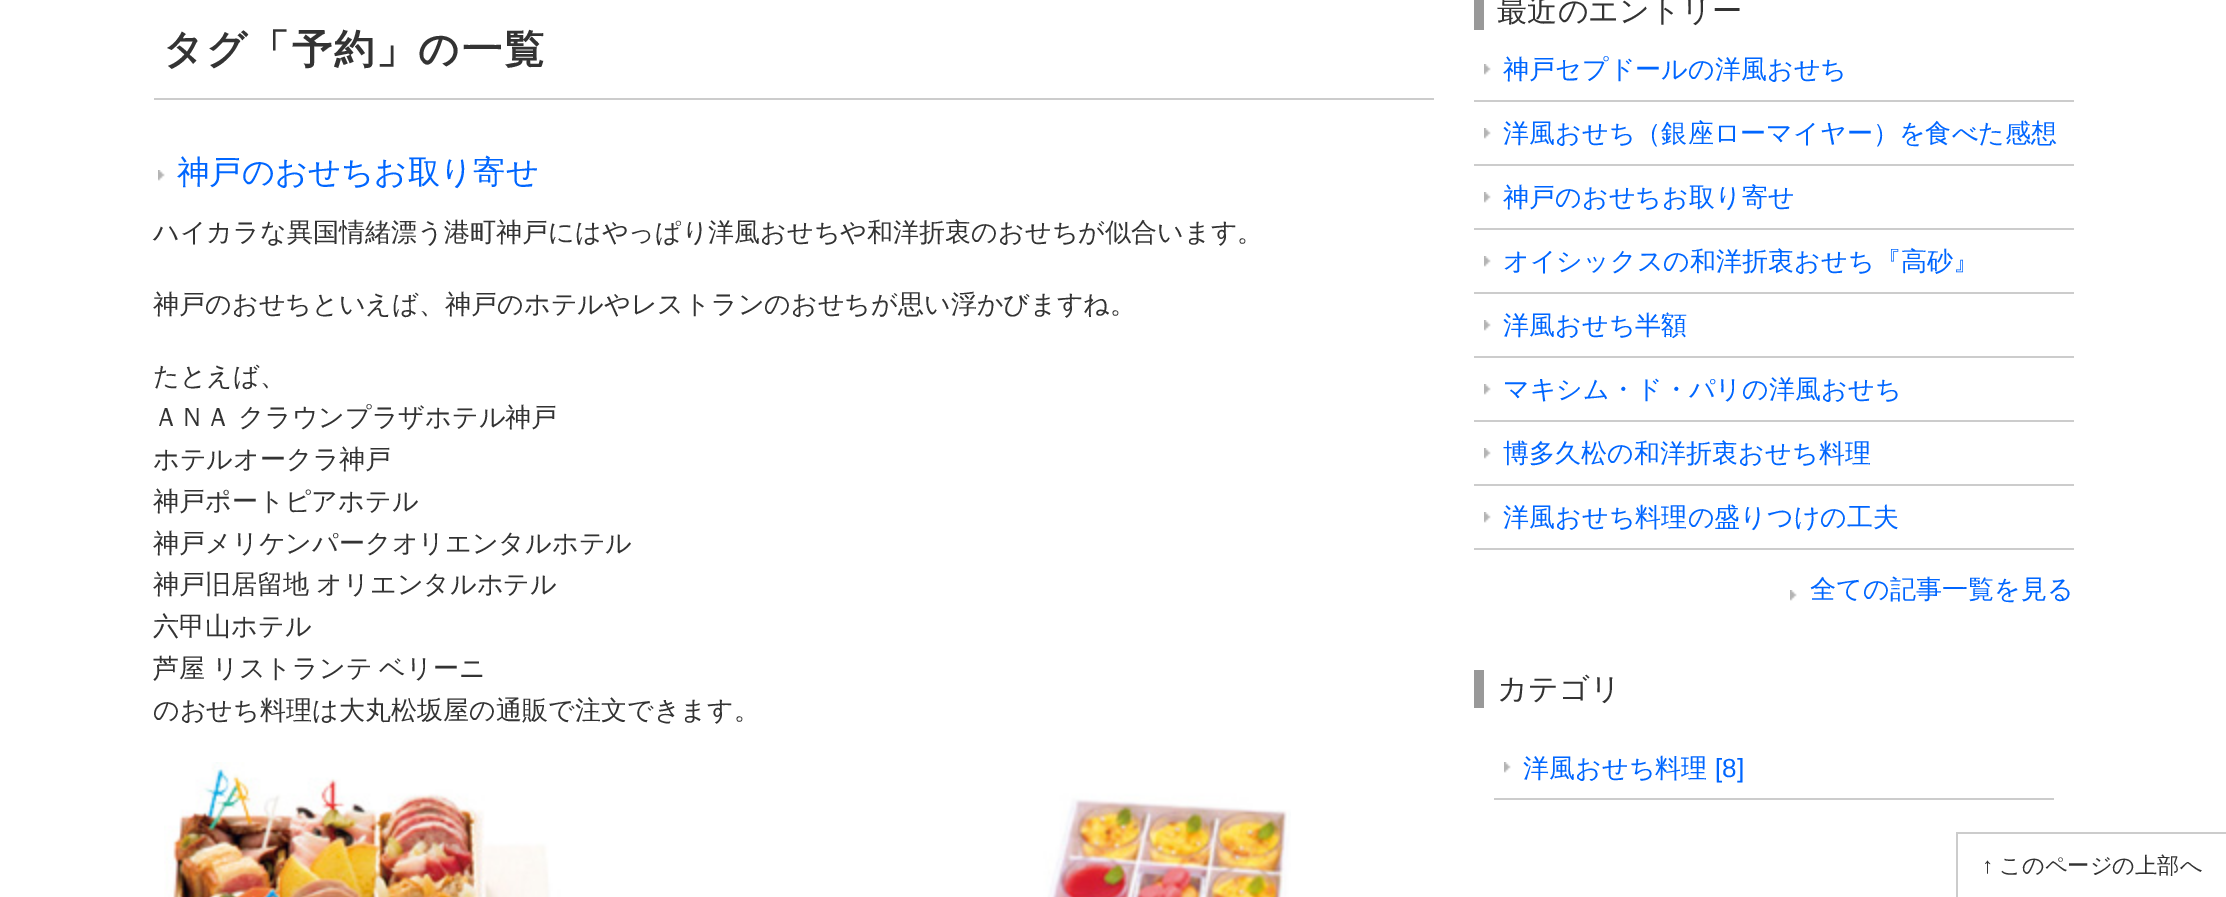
%!PS
<< /PageSize [2226 897] >> setpagedevice
/mt/moveto load def
/co { dup -16 bitshift 255 div exch dup -8 bitshift 255 and 255 div exch 255 and 255 div setrgbcolor } def
/fn { [ exch dup neg 0 0 3 -1 roll 0 0 ] selectfont } def
/tx { co fn moveto show } def
/bx { co rectfill } def
/im { 5 dict begin { /h /w /y /x /name } { exch def } forall
  gsave x y translate w h scale
  w h 8 [w 0 0 h 0 0] name (r) file false 3 colorimage grestore end } def
0 897 translate 1 -1 scale
4 setmiterlimit
0 0 2226 897 16#FFFFFF bx
1474 0 10 30 16#999999 bx
(media/1.raw) 1484 64 7 11 im
1474 100 600 2 16#CCCCCC bx
(media/1.raw) 1484 128 7 11 im
1474 164 600 2 16#CCCCCC bx
(media/1.raw) 1484 192 7 11 im
1474 228 600 2 16#CCCCCC bx
(media/1.raw) 1484 256 7 11 im
1474 292 600 2 16#CCCCCC bx
(media/1.raw) 1484 320 7 11 im
1474 356 600 2 16#CCCCCC bx
(media/1.raw) 1484 384 7 11 im
1474 420 600 2 16#CCCCCC bx
(media/1.raw) 1484 448 7 11 im
1474 484 600 2 16#CCCCCC bx
(media/1.raw) 1484 512 7 11 im
1474 548 600 2 16#CCCCCC bx
(media/1.raw) 1790 590 7 11 im
1474 670 10 38 16#999999 bx
(media/1.raw) 1504 762 7 11 im
1494 798 560 2 16#CCCCCC bx
154 98 1280 2 16#CCCCCC bx
(media/1.raw) 158 170 7 11 im
(media/2.raw) 164 762 1127 135 im
1956 832 270 2 16#CCCCCC bx
1956 832 2 65 16#CCCCCC bx
(最近のエントリー) 1497 21 /WenQuanYiZenHei-Medium 30.25 16#333333 tx
(神戸セプドールの洋風おせち) 1503 78 /WenQuanYiZenHei-Medium 26.1 16#0066FF tx
(洋風おせち（銀座ローマイヤー）を食べた感想) 1503 142 /WenQuanYiZenHei-Medium 26.1 16#0066FF tx
(神戸のおせちお取り寄せ) 1503 206 /WenQuanYiZenHei-Medium 26.1 16#0066FF tx
(オイシックスの和洋折衷おせち『高砂』) 1503 270 /WenQuanYiZenHei-Medium 26.1 16#0066FF tx
(洋風おせち半額) 1503 334 /WenQuanYiZenHei-Medium 26.1 16#0066FF tx
(マキシム・ド・パリの洋風おせち) 1503 398 /WenQuanYiZenHei-Medium 26.1 16#0066FF tx
(博多久松の和洋折衷おせち料理) 1503 462 /WenQuanYiZenHei-Medium 26.1 16#0066FF tx
(洋風おせち料理の盛りつけの工夫) 1503 526 /WenQuanYiZenHei-Medium 26.1 16#0066FF tx
(全ての記事一覧を見る) 1810 598 /WenQuanYiZenHei-Medium 26.1 16#0066FF tx
(カテゴリ) 1497 699 /WenQuanYiZenHei-Medium 30.25 16#333333 tx
(洋風おせち料理) 1523 777 /WenQuanYiZenHei-Medium 26.1 16#0066FF tx
([8]) 1715 777 /LiberationSans-Regular 26.1 16#0066FF tx
/WenQuanYiZenHei-Bold 40.25 fn
16#333333 co
163 63 mt 2 0 (タグ「予約」の一覧) ashow
(神戸のおせちお取り寄せ) 177 183 /WenQuanYiZenHei-Medium 32.4 16#0066FF tx
(ハイカラな異国情緒漂う港町神戸にはやっぱり) 153 241 /WenQuanYiZenHei-Medium 26.1 16#333333 tx
(洋風おせちや和洋折衷のおせちが似合います。) 708 241 /WenQuanYiZenHei-Medium 26.1 16#333333 tx
(神戸のおせちといえば、神戸のホテルやレストランのおせち) 153 313 /WenQuanYiZenHei-Medium 26.1 16#333333 tx
(が思い浮かびますね。) 871 313 /WenQuanYiZenHei-Medium 26.1 16#333333 tx
(たとえば、) 153 385 /WenQuanYiZenHei-Medium 26.1 16#333333 tx
153 426 mt -1 0 32 (ＡＮＡ クラウンプラザホテル神戸) widthshow
(ホテルオークラ神戸) 153 468 /WenQuanYiZenHei-Medium 26.1 16#333333 tx
(神戸ポートピアホテル) 153 510 /WenQuanYiZenHei-Medium 26.1 16#333333 tx
(神戸メリケンパークオリエンタルホテル) 153 552 /WenQuanYiZenHei-Medium 26.1 16#333333 tx
153 593 mt -1 0 32 (神戸旧居留地 オリエンタルホテル) widthshow
(六甲山ホテル) 153 635 /WenQuanYiZenHei-Medium 26.1 16#333333 tx
153 677 mt -1 0 32 (芦屋 リストランテ ベリーニ) widthshow
(のおせち料理は大丸松坂屋の通販で注文できます。) 153 719 /WenQuanYiZenHei-Medium 26.1 16#333333 tx
(↑) 1982 873 /LiberationSans-Regular 22.25 16#333333 tx
(このページの上部へ) 1999 873 /WenQuanYiZenHei-Medium 22.25 16#333333 tx
showpage
